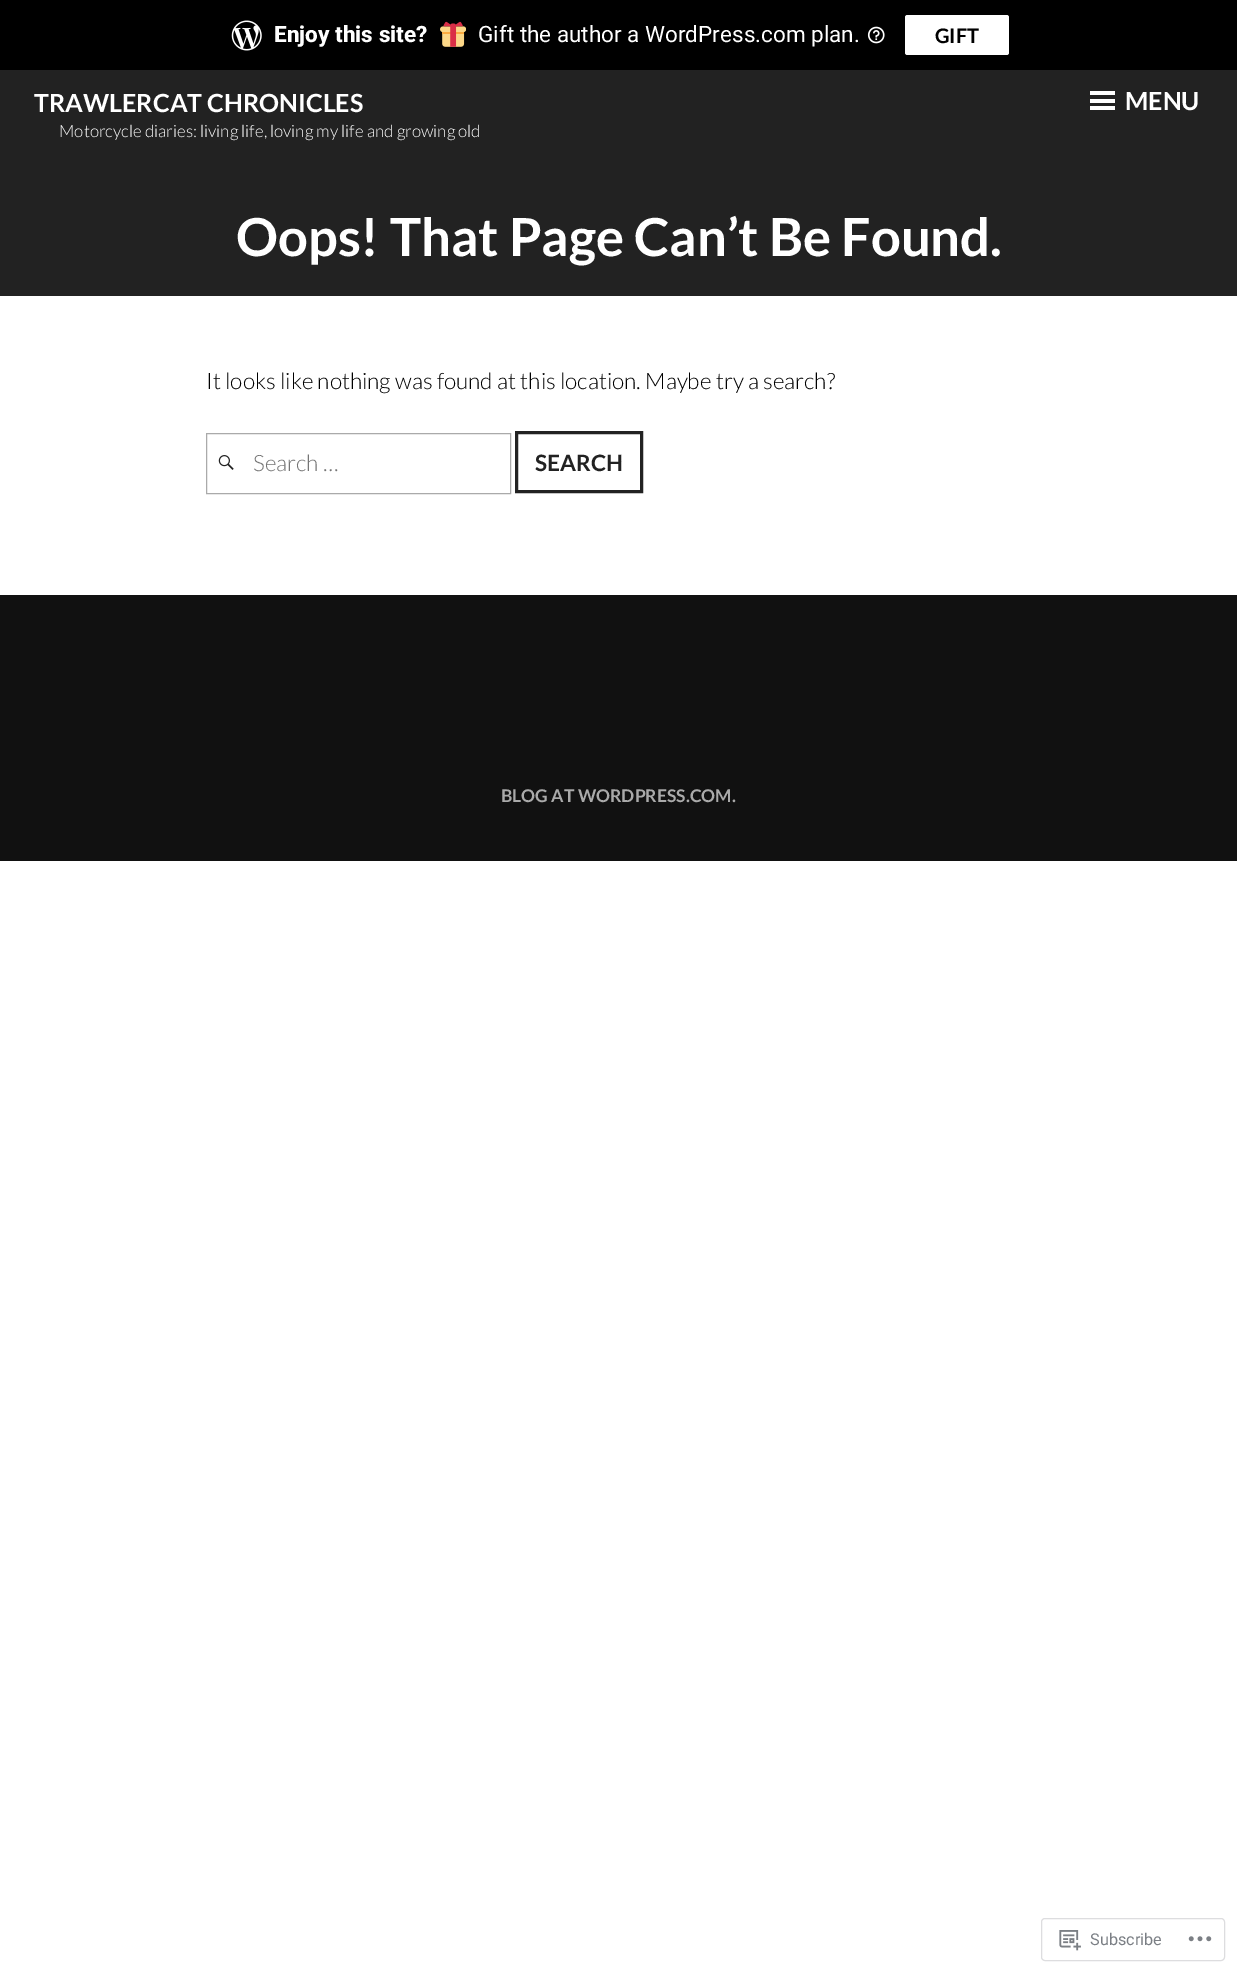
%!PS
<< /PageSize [1237 1973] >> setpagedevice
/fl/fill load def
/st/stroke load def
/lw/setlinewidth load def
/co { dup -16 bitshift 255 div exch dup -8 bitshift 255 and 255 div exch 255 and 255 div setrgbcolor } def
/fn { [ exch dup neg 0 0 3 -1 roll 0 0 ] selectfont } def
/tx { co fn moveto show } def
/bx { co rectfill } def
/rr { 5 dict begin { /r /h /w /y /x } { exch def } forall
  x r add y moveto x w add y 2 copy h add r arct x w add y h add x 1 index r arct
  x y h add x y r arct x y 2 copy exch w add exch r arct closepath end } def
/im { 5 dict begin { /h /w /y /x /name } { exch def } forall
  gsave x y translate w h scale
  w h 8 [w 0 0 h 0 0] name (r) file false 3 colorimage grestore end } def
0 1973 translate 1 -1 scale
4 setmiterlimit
0 0 1237 1973 16#FFFFFF bx
0 0 1237 70 16#000000 bx
(media/1.raw) 231 20 31 31 im
(media/2.raw) 440 21 26 26 im
(media/3.raw) 867 26 18 18 im
16#FFFFFF co
905 15 104 40 2.5 rr fl
0 70 1237 226 16#222222 bx
1090 99 25 4 16#FFFFFF bx
1090 91 25 4 16#FFFFFF bx
1090 106 25 4 16#FFFFFF bx
16#AAAAAA co
206.5 433.5 304 60 rectstroke
(media/4.raw) 218 455 16 15 im
16#222222 co
3 lw
516.5 432.5 125 59 rectstroke
0 595 1237 266 16#111111 bx
16#DDDDDF co
1 lw
1041.5 1918.5 183 42 3.5 rr st
(media/5.raw) 1059 1930 22 21 im
(media/6.raw) 1188 1936 24 6 im
(Enjoy this site?) 274 42 /Roboto-ExtraBold 22.5 16#FFFFFF tx
(Gift the author a WordPress.com plan.) 478 42 /Roboto-Regular 22.5 16#FFFFFF tx
(GIFT) 935 43 /Lato-Bold 20 16#000000 tx
(TRAWLERCAT CHRONICLES) 34 112 /Lato-Bold 25 16#FFFFFF tx
(Motorcycle diaries: living life, loving my life and growing old) 59 137 /Lato-Light 16.9 16#FFFFFF tx
(MENU) 1125 110 /Lato-Bold 25 16#FFFFFF tx
(Oops! That Page Can’t Be Found.) 236 256 /Lato-Bold 52.5 16#FFFFFF tx
(It looks like nothing was found at this location. Maybe try a search?) 206 389 /Lato-Light 22.5 16#000000 tx
(Search …) 253 471 /Lato-Light 22.5 16#757575 tx
(SEARCH) 535 471 /Lato-Bold 22.5 16#222222 tx
(BLOG AT WORDPRESS.COM.) 501 802 /Lato-Bold 17.5 16#AAAAAA tx
(Subscribe) 1090 1945 /Roboto-Regular 16.25 16#7B7F85 tx
showpage
